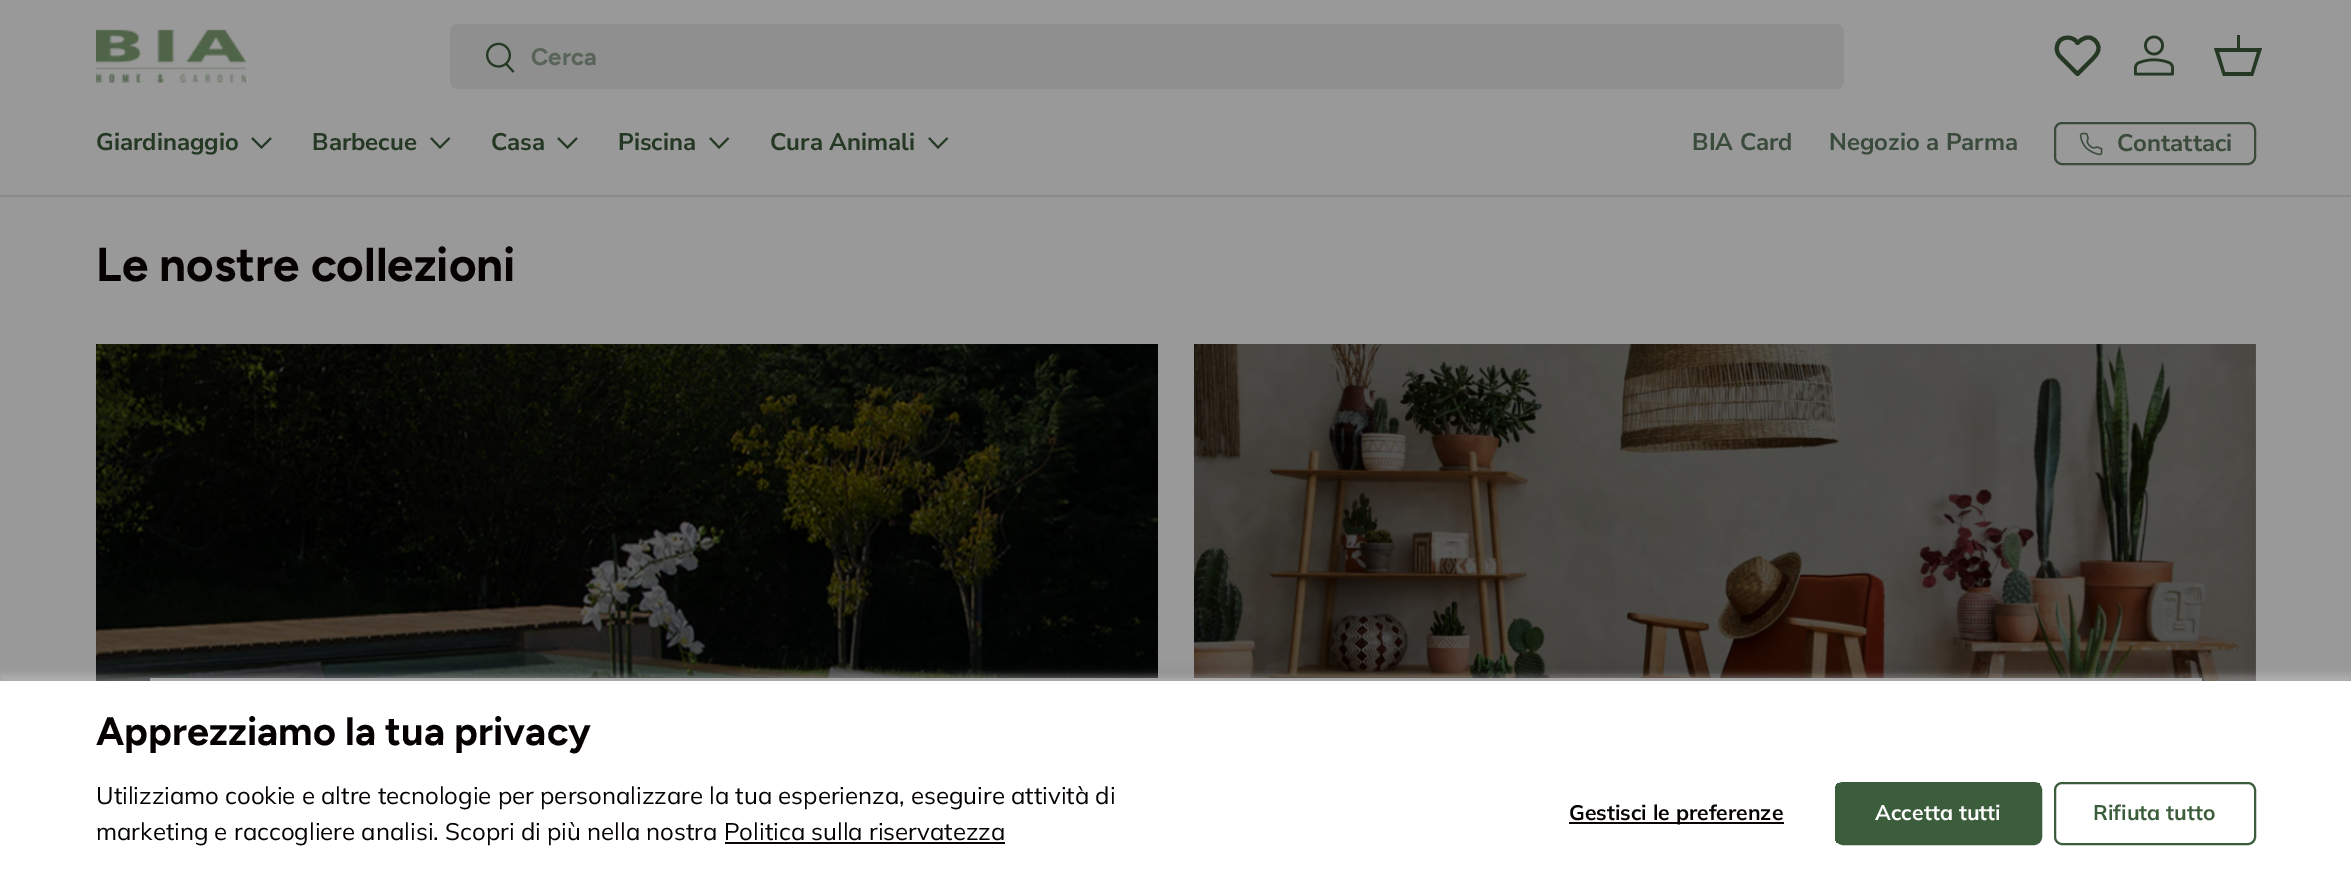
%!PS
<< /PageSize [2351 872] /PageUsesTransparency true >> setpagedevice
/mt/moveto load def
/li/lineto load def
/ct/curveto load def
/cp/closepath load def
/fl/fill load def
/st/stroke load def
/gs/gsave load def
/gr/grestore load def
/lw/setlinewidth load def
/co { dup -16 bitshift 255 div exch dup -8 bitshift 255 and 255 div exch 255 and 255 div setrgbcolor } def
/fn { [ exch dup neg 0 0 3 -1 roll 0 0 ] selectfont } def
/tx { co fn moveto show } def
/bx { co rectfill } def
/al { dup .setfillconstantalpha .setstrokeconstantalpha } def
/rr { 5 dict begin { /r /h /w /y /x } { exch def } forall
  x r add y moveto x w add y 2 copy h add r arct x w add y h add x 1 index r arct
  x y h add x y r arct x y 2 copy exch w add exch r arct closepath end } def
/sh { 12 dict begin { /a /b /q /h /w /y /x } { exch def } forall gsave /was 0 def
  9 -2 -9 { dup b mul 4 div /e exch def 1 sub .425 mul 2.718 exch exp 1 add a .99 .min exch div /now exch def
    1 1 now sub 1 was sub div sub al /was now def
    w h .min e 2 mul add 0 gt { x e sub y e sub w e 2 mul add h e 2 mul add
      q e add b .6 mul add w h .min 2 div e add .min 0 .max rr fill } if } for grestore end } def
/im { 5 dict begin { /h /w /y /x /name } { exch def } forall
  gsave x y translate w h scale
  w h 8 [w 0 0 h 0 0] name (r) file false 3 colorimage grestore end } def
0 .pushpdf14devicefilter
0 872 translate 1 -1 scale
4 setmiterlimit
0 0 2351 872 16#999999 bx
0 195 2351 2 16#888B88 bx
(media/1.raw) 96 29 150 54 im
16#8E8F8E co
450 24 1394 65 8 rr fl
(media/2.raw) 486 42 29 31 im
16#243824 co
4 lw
1 setlinejoin
2095 40.5 mt 2089 34.5 2082.5 38 2077.5 43 ct 2075.5 40.5 li 2071 36.5 2064 36.5 2060 40.5 ct 2055.5 45 2055.5 52 2060 56.5 ct 2077.5 74 li 2088 63.5 li 2094 57.5 2104 49.5 2095 40.5 ct cp st
(media/3.raw) 2134 35 40 41 im
2237 48 mt 2237 35 li 2240 35 li 2240 48 li 2262 48 li 2253 76 li 2223 76 li 2214 48 li cp 2219 52 mt 2225 72 li 2251 72 li 2257 52 li cp fl
1.9 lw
0 setlinejoin
271 138 mt 261.5 147.5 li 252 138 li st
449.5 138 mt 440 147.5 li 431 138 li st
577 138 mt 567.5 147.5 li 558 138 li st
728.5 138 mt 719 147.5 li 710 138 li st
947.5 138 mt 938 147.5 li 929 138 li st
16#3B4B3B co
2 lw
2055 123 200 41 7 rr st
(media/4.raw) 2079 132 24 24 im
(media/5.raw) 96 344 1062 337 im
(media/6.raw) 1194 344 1062 337 im
16#000000 co
144 677 2058 171 0 7.5 .2 sh
150 678 2052 3 16#929292 bx
16#D3D2D2 co
0 675 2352 192 0 3 .35 sh
0 681 2351 191 16#FFFFFF bx
1569 822 215 2 16#090302 bx
gs
1835 782 207 63 8 rr clip newpath
gs 1835 783 mt 2040 783 li 2040 843 li 1835 843 li cp clip newpath
<< /ShadingType 2 /ColorSpace /DeviceRGB /Coords [1439 739 2029 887] /Extend [true true] /Function << /FunctionType 3 /Domain [0 1] /Functions [<< /FunctionType 2 /Domain [0 1] /C0 [.376 .494 .376] /C1 [.376 .494 .376] /N 1 >> << /FunctionType 2 /Domain [0 1] /C0 [.235 .365 .235] /C1 [.235 .365 .235] /N 1 >>] /Bounds [.6] /Encode [0 1 0 1] >> >> shfill gr
gr
16#3C5D3C co
1836 783 205 61 7 rr st
2055 783 200 61 7 rr st
(Cerca) 531 65 /Figtree-Bold 24 16#596459 tx
(Giardinaggio) 96 150 /NunitoSans-Bold 24 16#243824 tx
(Barbecue) 312 150 /NunitoSans-Bold 24 16#243824 tx
(Casa) 491 150 /NunitoSans-Bold 24 16#243824 tx
(Piscina) 618 150 /NunitoSans-Bold 24 16#243824 tx
(Cura Animali) 770 150 /NunitoSans-Bold 24 16#243824 tx
(BIA Card) 1692 150 /NunitoSans-Bold 24 16#3B4B3B tx
(Negozio a Parma) 1829 150 /NunitoSans-Bold 24 16#3B4B3B tx
(Contattaci) 2117 151 /NunitoSans-Bold 24 16#3B4B3B tx
(Le nostre collezioni) 96 281 /Figtree-Bold 47.5 16#050201 tx
(Apprezziamo la tua privacy) 96 745 /Figtree-Bold 39.6 16#050201 tx
(Utilizziamo cookie e altre tecnologie per personalizzare la tua esperienza, eseguire attività di) 96 804 /Muli-Regular 24 16#050201 tx
(marketing e raccogliere analisi. Scopri di più nella nostra Politica sulla riservatezza) 96 840 /Muli-Regular 24 16#050201 tx
725 842 280 2 16#090302 bx
(Gestisci le preferenze) 1569 820 /Muli-Bold 21.1 16#050201 tx
(Accetta tutti) 1875 820 /Muli-Bold 21.1 16#FFFFFF tx
(Rifiuta tutto) 2093 820 /Muli-Bold 21.1 16#3C5D3C tx
.poppdf14devicefilter showpage
